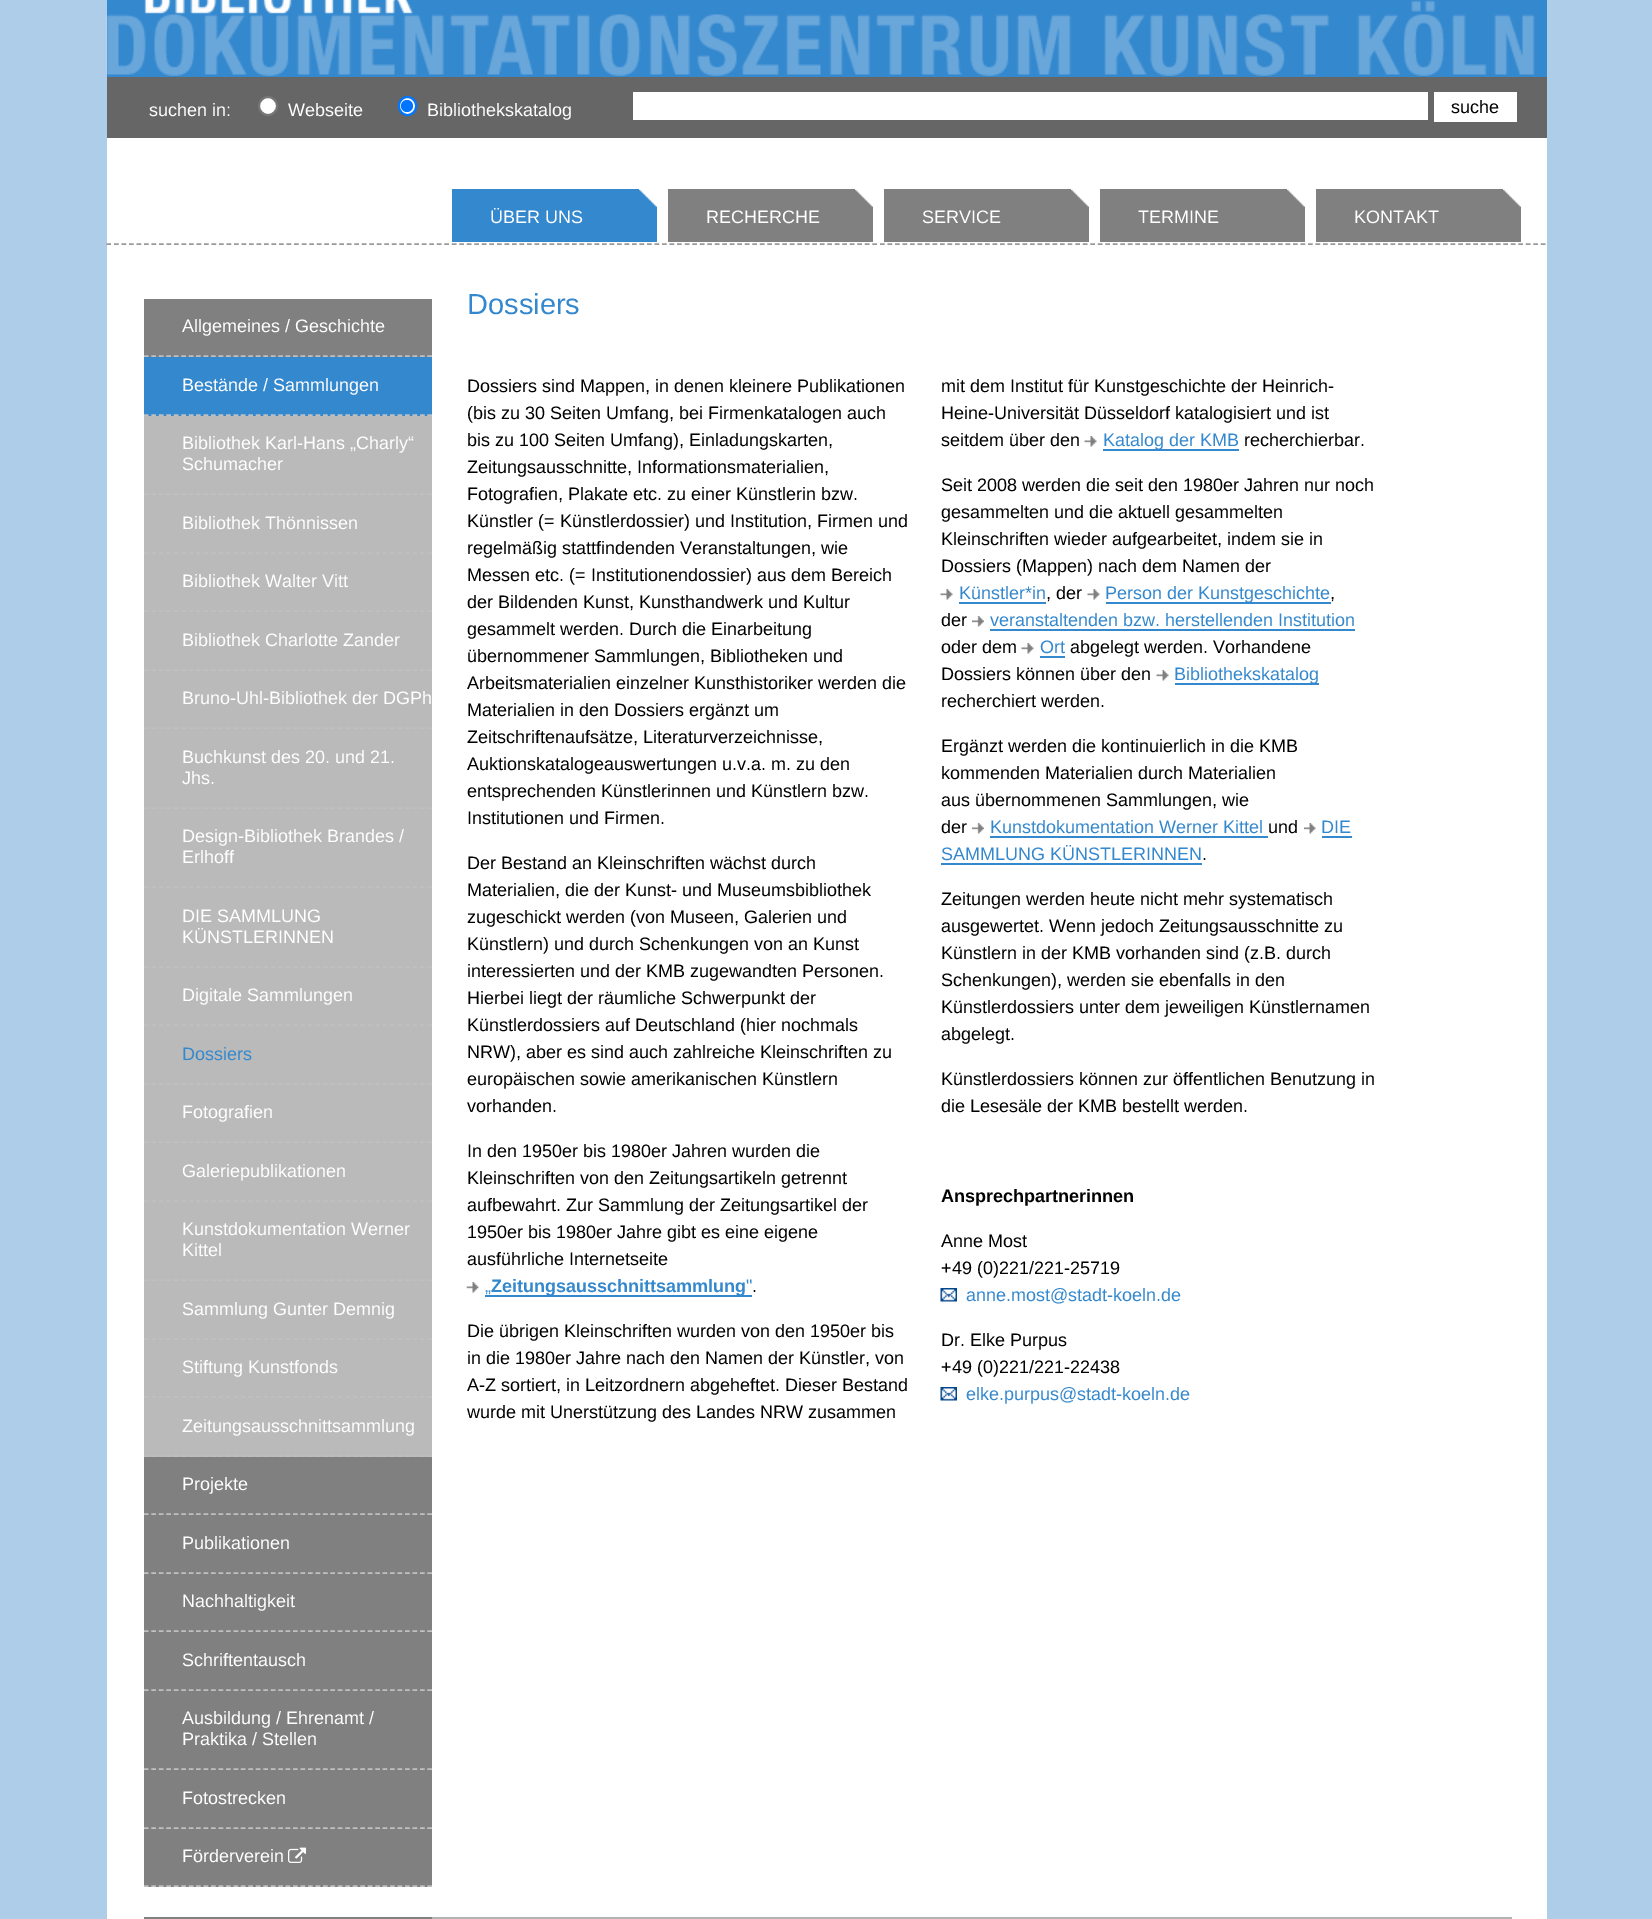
%!PS
<< /PageSize [1652 1919] >> setpagedevice
/mt/moveto load def
/li/lineto load def
/fl/fill load def
/st/stroke load def
/gs/gsave load def
/gr/grestore load def
/lw/setlinewidth load def
/co { dup -16 bitshift 255 div exch dup -8 bitshift 255 and 255 div exch 255 and 255 div setrgbcolor } def
/fn { [ exch dup neg 0 0 3 -1 roll 0 0 ] selectfont } def
/tx { co fn moveto show } def
/bx { co rectfill } def
/ci { newpath 0 360 arc closepath } def
/rr { 5 dict begin { /r /h /w /y /x } { exch def } forall
  x r add y moveto x w add y 2 copy h add r arct x w add y h add x 1 index r arct
  x y h add x y r arct x y 2 copy exch w add exch r arct closepath end } def
/im { 5 dict begin { /h /w /y /x /name } { exch def } forall
  gsave x y translate w h scale
  w h 8 [w 0 0 h 0 0] name (r) file false 3 colorimage grestore end } def
0 1919 translate 1 -1 scale
4 setmiterlimit
0 0 1652 1919 16#ADCDE8 bx
107 138 1440 1781 16#FFFFFF bx
107 0 1440 77 16#3488CE bx
(media/1.raw) 106 0 1429 76 im
107 77 1440 61 16#666666 bx
16#FFFFFF co
268 106 9 ci gs fl gr
16#767676 co
2 lw
st
16#FFFFFF co
399 97 17 18 8.5 rr gs fl gr
16#0075FF co
st
407 106 6 ci fl
633 92 795 28 16#FFFFFF bx
1436 95 79 25 16#FFFFFF bx
1434 92 83 3 16#FFFFFF bx
1515 92 2 30 16#FFFFFF bx
1434 120 83 2 16#FFFFFF bx
1434 92 2 30 16#FFFFFF bx
16#999999 co
1.5 lw
[4.5 3.01] 0 setdash
106.5 244 mt 1546.5 244 li st
452 189 205 53 16#3488CE bx
(media/2.raw) 639 189 18 18 im
668 189 205 53 16#808080 bx
(media/3.raw) 855 189 18 18 im
884 189 205 53 16#808080 bx
(media/4.raw) 1071 189 18 18 im
1100 189 205 53 16#808080 bx
(media/5.raw) 1287 189 18 18 im
1316 189 205 53 16#808080 bx
(media/4.raw) 1503 189 18 18 im
144 299 288 1588 16#808080 bx
16#C0C0C0 co
[4.5 2.96] 0 setdash
144 356 mt 432 356 li st
144 357 288 59 16#3488CE bx
16#C0C0C0 co
144 415 mt 432 415 li st
144 416 288 1041 16#BABABA bx
16#C0C0C0 co
144 494 mt 432 494 li st
144 553 mt 432 553 li st
144 611 mt 432 611 li st
144 670 mt 432 670 li st
144 728 mt 432 728 li st
144 808 mt 432 808 li st
144 887 mt 432 887 li st
144 967 mt 432 967 li st
144 1025 mt 432 1025 li st
144 1084 mt 432 1084 li st
144 1142 mt 432 1142 li st
144 1201 mt 432 1201 li st
144 1280 mt 432 1280 li st
144 1339 mt 432 1339 li st
144 1397 mt 432 1397 li st
144 1456 mt 432 1456 li st
144 1514 mt 432 1514 li st
144 1573 mt 432 1573 li st
144 1631 mt 432 1631 li st
144 1690 mt 432 1690 li st
144 1769 mt 432 1769 li st
144 1828 mt 432 1828 li st
144 1886 mt 432 1886 li st
(media/6.raw) 288 1847 18 16 im
(media/7.raw) 466 1282 13 11 im
485 1295 267 2 16#3488CE bx
(media/8.raw) 1084 436 13 11 im
1103 449 136 2 16#3488CE bx
(media/8.raw) 940 589 13 11 im
959 602 87 2 16#3488CE bx
(media/8.raw) 1087 589 13 11 im
1106 602 225 2 16#3488CE bx
(media/9.raw) 972 616 12 11 im
990 629 365 2 16#3488CE bx
(media/8.raw) 1021 643 13 11 im
1040 656 25 2 16#3488CE bx
(media/10.raw) 1156 670 13 11 im
1175 683 144 2 16#3488CE bx
(media/9.raw) 972 823 12 11 im
990 836 278 2 16#3488CE bx
(media/11.raw) 1304 823 12 11 im
1322 836 30 2 16#3488CE bx
941 863 261 2 16#3488CE bx
(media/12.raw) 940 1288 17 14 im
(media/12.raw) 940 1387 17 14 im
432 1917 1080 2 16#B3B3B3 bx
144 1917 288 2 16#808080 bx
(suchen in:) 149 116 /LiberationSans-Regular 18 16#FFFFFF tx
(Webseite) 288 116 /LiberationSans-Regular 18 16#FFFFFF tx
(Bibliothekskatalog) 427 116 /LiberationSans-Regular 18 16#FFFFFF tx
(suche) 1451 113 /LiberationSans-Regular 18 16#000000 tx
(ÜBER UNS) 490 223 /LiberationSans-Regular 18 16#FFFFFF tx
(RECHERCHE) 706 223 /LiberationSans-Regular 18 16#FFFFFF tx
(SERVICE) 922 223 /LiberationSans-Regular 18 16#FFFFFF tx
(TERMINE) 1138 223 /LiberationSans-Regular 18 16#FFFFFF tx
(KONTAKT) 1354 223 /LiberationSans-Regular 18 16#FFFFFF tx
(Allgemeines / Geschichte) 182 332 /LiberationSans-Regular 18 16#FFFFFF tx
(Bestände / Sammlungen) 182 391 /LiberationSans-Regular 18 16#FFFFFF tx
(Bibliothek Karl-Hans „Charly“) 182 449 /LiberationSans-Regular 18 16#FFFFFF tx
(Schumacher) 182 470 /LiberationSans-Regular 18 16#FFFFFF tx
(Bibliothek Thönnissen) 182 529 /LiberationSans-Regular 18 16#FFFFFF tx
(Bibliothek Walter Vitt) 182 587 /LiberationSans-Regular 18 16#FFFFFF tx
(Bibliothek Charlotte Zander) 182 646 /LiberationSans-Regular 18 16#FFFFFF tx
(Bruno-Uhl-Bibliothek der DGPh) 182 704 /LiberationSans-Regular 18 16#FFFFFF tx
(Buchkunst des 20. und 21.) 182 763 /LiberationSans-Regular 18 16#FFFFFF tx
(Jhs.) 182 784 /LiberationSans-Regular 18 16#FFFFFF tx
(Design-Bibliothek Brandes /) 182 842 /LiberationSans-Regular 18 16#FFFFFF tx
(Erlhoff) 182 863 /LiberationSans-Regular 18 16#FFFFFF tx
(DIE SAMMLUNG) 182 922 /LiberationSans-Regular 18 16#FFFFFF tx
(KÜNSTLERINNEN) 182 943 /LiberationSans-Regular 18 16#FFFFFF tx
(Digitale Sammlungen) 182 1001 /LiberationSans-Regular 18 16#FFFFFF tx
(Dossiers) 182 1060 /LiberationSans-Regular 18 16#3488CE tx
(Fotografien) 182 1118 /LiberationSans-Regular 18 16#FFFFFF tx
(Galeriepublikationen) 182 1177 /LiberationSans-Regular 18 16#FFFFFF tx
(Kunstdokumentation Werner) 182 1235 /LiberationSans-Regular 18 16#FFFFFF tx
(Kittel) 182 1256 /LiberationSans-Regular 18 16#FFFFFF tx
(Sammlung Gunter Demnig) 182 1315 /LiberationSans-Regular 18 16#FFFFFF tx
(Stiftung Kunstfonds) 182 1373 /LiberationSans-Regular 18 16#FFFFFF tx
(Zeitungsausschnittsammlung) 182 1432 /LiberationSans-Regular 18 16#FFFFFF tx
(Projekte) 182 1490 /LiberationSans-Regular 18 16#FFFFFF tx
(Publikationen) 182 1549 /LiberationSans-Regular 18 16#FFFFFF tx
(Nachhaltigkeit) 182 1607 /LiberationSans-Regular 18 16#FFFFFF tx
(Schriftentausch) 182 1666 /LiberationSans-Regular 18 16#FFFFFF tx
(Ausbildung / Ehrenamt /) 182 1724 /LiberationSans-Regular 18 16#FFFFFF tx
(Praktika / Stellen) 182 1745 /LiberationSans-Regular 18 16#FFFFFF tx
(Fotostrecken) 182 1804 /LiberationSans-Regular 18 16#FFFFFF tx
(Förderverein) 182 1862 /LiberationSans-Regular 18 16#FFFFFF tx
(Dossiers) 467 314 /LiberationSans-Regular 29 16#3488CE tx
(Dossiers sind Mappen, in denen kleinere Publikationen) 467 392 /LiberationSans-Regular 18 16#000000 tx
(\(bis zu 30 Seiten Umfang, bei Firmenkatalogen auch) 467 419 /LiberationSans-Regular 18 16#000000 tx
(bis zu 100 Seiten Umfang\), Einladungskarten,) 467 446 /LiberationSans-Regular 18 16#000000 tx
(Zeitungsausschnitte, Informationsmaterialien,) 467 473 /LiberationSans-Regular 18 16#000000 tx
(Fotografien, Plakate etc. zu einer Künstlerin bzw.) 467 500 /LiberationSans-Regular 18 16#000000 tx
(Künstler \(= Künstlerdossier\) und Institution, Firmen und) 467 527 /LiberationSans-Regular 18 16#000000 tx
(regelmäßig stattfindenden Veranstaltungen, wie) 467 554 /LiberationSans-Regular 18 16#000000 tx
(Messen etc. \(= Institutionendossier\) aus dem Bereich) 467 581 /LiberationSans-Regular 18 16#000000 tx
(der Bildenden Kunst, Kunsthandwerk und Kultur) 467 608 /LiberationSans-Regular 18 16#000000 tx
(gesammelt werden. Durch die Einarbeitung) 467 635 /LiberationSans-Regular 18 16#000000 tx
(übernommener Sammlungen, Bibliotheken und) 467 662 /LiberationSans-Regular 18 16#000000 tx
(Arbeitsmaterialien einzelner Kunsthistoriker werden die) 467 689 /LiberationSans-Regular 18 16#000000 tx
(Materialien in den Dossiers ergänzt um) 467 716 /LiberationSans-Regular 18 16#000000 tx
(Zeitschriftenaufsätze, Literaturverzeichnisse,) 467 743 /LiberationSans-Regular 18 16#000000 tx
(Auktionskatalogeauswertungen u.v.a. m. zu den) 467 770 /LiberationSans-Regular 18 16#000000 tx
(entsprechenden Künstlerinnen und Künstlern bzw.) 467 797 /LiberationSans-Regular 18 16#000000 tx
(Institutionen und Firmen.) 467 824 /LiberationSans-Regular 18 16#000000 tx
(Der Bestand an Kleinschriften wächst durch) 467 869 /LiberationSans-Regular 18 16#000000 tx
(Materialien, die der Kunst- und Museumsbibliothek) 467 896 /LiberationSans-Regular 18 16#000000 tx
(zugeschickt werden \(von Museen, Galerien und) 467 923 /LiberationSans-Regular 18 16#000000 tx
(Künstlern\) und durch Schenkungen von an Kunst) 467 950 /LiberationSans-Regular 18 16#000000 tx
(interessierten und der KMB zugewandten Personen.) 467 977 /LiberationSans-Regular 18 16#000000 tx
(Hierbei liegt der räumliche Schwerpunkt der) 467 1004 /LiberationSans-Regular 18 16#000000 tx
(Künstlerdossiers auf Deutschland \(hier nochmals) 467 1031 /LiberationSans-Regular 18 16#000000 tx
(NRW\), aber es sind auch zahlreiche Kleinschriften zu) 467 1058 /LiberationSans-Regular 18 16#000000 tx
(europäischen sowie amerikanischen Künstlern) 467 1085 /LiberationSans-Regular 18 16#000000 tx
(vorhanden.) 467 1112 /LiberationSans-Regular 18 16#000000 tx
(In den 1950er bis 1980er Jahren wurden die) 467 1157 /LiberationSans-Regular 18 16#000000 tx
(Kleinschriften von den Zeitungsartikeln getrennt) 467 1184 /LiberationSans-Regular 18 16#000000 tx
(aufbewahrt. Zur Sammlung der Zeitungsartikel der) 467 1211 /LiberationSans-Regular 18 16#000000 tx
(1950er bis 1980er Jahre gibt es eine eigene) 467 1238 /LiberationSans-Regular 18 16#000000 tx
(ausführliche Internetseite) 467 1265 /LiberationSans-Regular 18 16#000000 tx
(Zeitungsausschnittsammlung) 491 1292 /LiberationSans-Bold 18 16#3488CE tx
(") 746 1292 /LiberationSans-Regular 18 16#3488CE tx
(„) 485 1292 /LiberationSans-Regular 18 16#3488CE tx
(.) 752 1292 /LiberationSans-Regular 18 16#000000 tx
(Die übrigen Kleinschriften wurden von den 1950er bis) 467 1337 /LiberationSans-Regular 18 16#000000 tx
(in die 1980er Jahre nach den Namen der Künstler, von) 467 1364 /LiberationSans-Regular 18 16#000000 tx
(A-Z sortiert, in Leitzordnern abgeheftet. Dieser Bestand) 467 1391 /LiberationSans-Regular 18 16#000000 tx
(wurde mit Unerstützung des Landes NRW zusammen) 467 1418 /LiberationSans-Regular 18 16#000000 tx
(mit dem Institut für Kunstgeschichte der Heinrich-) 941 392 /LiberationSans-Regular 18 16#000000 tx
(Heine-Universität Düsseldorf katalogisiert und ist) 941 419 /LiberationSans-Regular 18 16#000000 tx
(seitdem über den) 941 446 /LiberationSans-Regular 18 16#000000 tx
(Katalog der KMB) 1103 446 /LiberationSans-Regular 18 16#3488CE tx
(recherchierbar.) 1244 446 /LiberationSans-Regular 18 16#000000 tx
(Seit 2008 werden die seit den 1980er Jahren nur noch) 941 491 /LiberationSans-Regular 18 16#000000 tx
(gesammelten und die aktuell gesammelten) 941 518 /LiberationSans-Regular 18 16#000000 tx
(Kleinschriften wieder aufgearbeitet, indem sie in) 941 545 /LiberationSans-Regular 18 16#000000 tx
(Dossiers \(Mappen\) nach dem Namen der) 941 572 /LiberationSans-Regular 18 16#000000 tx
(Künstler*in) 959 599 /LiberationSans-Regular 18 16#3488CE tx
(, der) 1046 599 /LiberationSans-Regular 18 16#000000 tx
(Person der Kunstgeschichte) 1105 599 /LiberationSans-Regular 18 16#3488CE tx
(,) 1330 599 /LiberationSans-Regular 18 16#000000 tx
(der) 941 626 /LiberationSans-Regular 18 16#000000 tx
(veranstaltenden bzw. herstellenden Institution) 990 626 /LiberationSans-Regular 18 16#3488CE tx
(oder dem) 941 653 /LiberationSans-Regular 18 16#000000 tx
(Ort) 1040 653 /LiberationSans-Regular 18 16#3488CE tx
(abgelegt werden. Vorhandene) 1070 653 /LiberationSans-Regular 18 16#000000 tx
(Dossiers können über den) 941 680 /LiberationSans-Regular 18 16#000000 tx
(Bibliothekskatalog) 1174 680 /LiberationSans-Regular 18 16#3488CE tx
(recherchiert werden.) 941 707 /LiberationSans-Regular 18 16#000000 tx
(Ergänzt werden die kontinuierlich in die KMB) 941 752 /LiberationSans-Regular 18 16#000000 tx
(kommenden Materialien durch Materialien) 941 779 /LiberationSans-Regular 18 16#000000 tx
(aus übernommenen Sammlungen, wie) 941 806 /LiberationSans-Regular 18 16#000000 tx
(der) 941 833 /LiberationSans-Regular 18 16#000000 tx
(Kunstdokumentation Werner Kittel) 990 833 /LiberationSans-Regular 18 16#3488CE tx
(und) 1268 833 /LiberationSans-Regular 18 16#000000 tx
(DIE) 1321 833 /LiberationSans-Regular 18 16#3488CE tx
(SAMMLUNG KÜNSTLERINNEN) 941 860 /LiberationSans-Regular 18 16#3488CE tx
(.) 1202 860 /LiberationSans-Regular 18 16#000000 tx
(Zeitungen werden heute nicht mehr systematisch) 941 905 /LiberationSans-Regular 18 16#000000 tx
(ausgewertet. Wenn jedoch Zeitungsausschnitte zu) 941 932 /LiberationSans-Regular 18 16#000000 tx
(Künstlern in der KMB vorhanden sind \(z.B. durch) 941 959 /LiberationSans-Regular 18 16#000000 tx
(Schenkungen\), werden sie ebenfalls in den) 941 986 /LiberationSans-Regular 18 16#000000 tx
(Künstlerdossiers unter dem jeweiligen Künstlernamen) 941 1013 /LiberationSans-Regular 18 16#000000 tx
(abgelegt.) 941 1040 /LiberationSans-Regular 18 16#000000 tx
(Künstlerdossiers können zur öffentlichen Benutzung in) 941 1085 /LiberationSans-Regular 18 16#000000 tx
(die Lesesäle der KMB bestellt werden.) 941 1112 /LiberationSans-Regular 18 16#000000 tx
(Ansprechpartnerinnen) 941 1202 /LiberationSans-Bold 18 16#000000 tx
(Anne Most) 941 1247 /LiberationSans-Regular 18 16#000000 tx
(+49 \(0\)221/221-25719) 941 1274 /LiberationSans-Regular 18 16#000000 tx
(anne.most@stadt-koeln.de) 966 1301 /LiberationSans-Regular 18 16#3488CE tx
(Dr. Elke Purpus) 941 1346 /LiberationSans-Regular 18 16#000000 tx
(+49 \(0\)221/221-22438) 941 1373 /LiberationSans-Regular 18 16#000000 tx
(elke.purpus@stadt-koeln.de) 966 1400 /LiberationSans-Regular 18 16#3488CE tx
showpage
